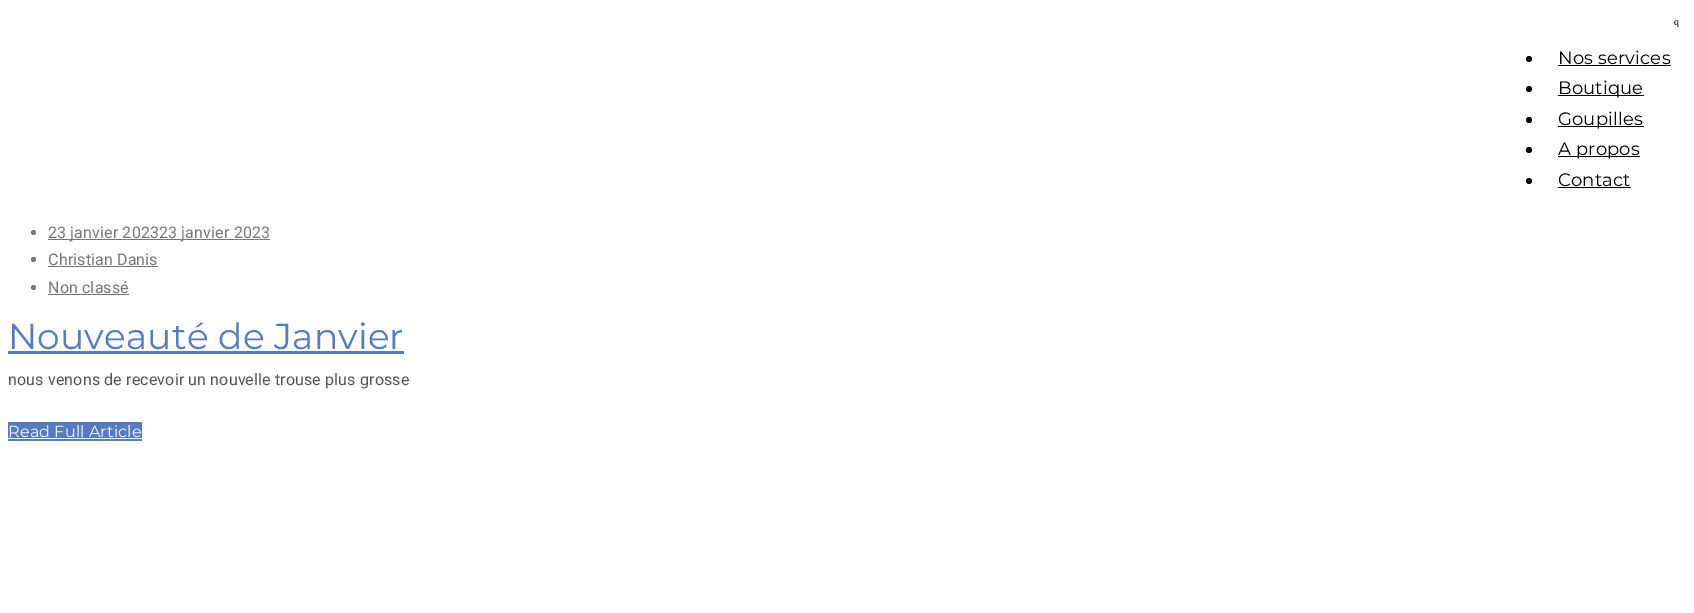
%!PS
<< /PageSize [1694 613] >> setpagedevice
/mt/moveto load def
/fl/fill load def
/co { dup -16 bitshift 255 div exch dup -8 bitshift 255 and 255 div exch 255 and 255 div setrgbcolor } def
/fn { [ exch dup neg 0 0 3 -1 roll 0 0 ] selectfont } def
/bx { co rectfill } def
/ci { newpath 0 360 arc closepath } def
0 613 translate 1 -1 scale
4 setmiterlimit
0 0 1694 613 16#FFFFFF bx
16#000000 co
1529 89 3 ci fl
1558 95 86 1 16#000000 bx
1529 59 3 ci fl
1558 65 113 1 16#000000 bx
1529 120 3 ci fl
1558 126 86 1 16#000000 bx
1529 150 3 ci fl
1558 156 82 1 16#000000 bx
1529 181 3 ci fl
1558 187 73 1 16#000000 bx
16#777777 co
33.5 232.5 2.5 ci fl
48 239 222 1 16#777777 bx
33.5 259.5 2.5 ci fl
48 266 110 1 16#777777 bx
33.5 287.5 2.5 ci fl
48 294 81 1 16#777777 bx
8 351 396 3 16#557CBF bx
8 422 134 19 16#557CBF bx
8 438 134 1 16#F4F4F4 bx
/LiberationSerif-Regular 10 fn
16#000000 co
1674 25 mt .15 0 (q) ashow
/Montserrat-Regular 18 fn
1558 94 mt .15 0 (Boutique) ashow
1558 64 mt .15 0 (Nos services) ashow
1558 125 mt .15 0 (Goupilles) ashow
1558 155 mt .15 0 (A propos) ashow
1558 186 mt .15 0 (Contact) ashow
/Roboto-Regular 16 fn
16#777777 co
48 238 mt .15 0 (23 janvier 202323 janvier 2023) ashow
48 265 mt .15 0 (Christian Danis) ashow
48 293 mt .15 0 (Non classé) ashow
/Montserrat-Regular 36 fn
16#557CBF co
8 349 mt .15 0 (Nouveauté de Janvier) ashow
/Roboto-Regular 16 fn
16#555555 co
8 385 mt .15 0 (nous venons de recevoir un nouvelle trouse plus grosse) ashow
/Montserrat-Regular 16 fn
16#F4F4F4 co
8 437 mt .15 0 (Read Full Article) ashow
showpage
